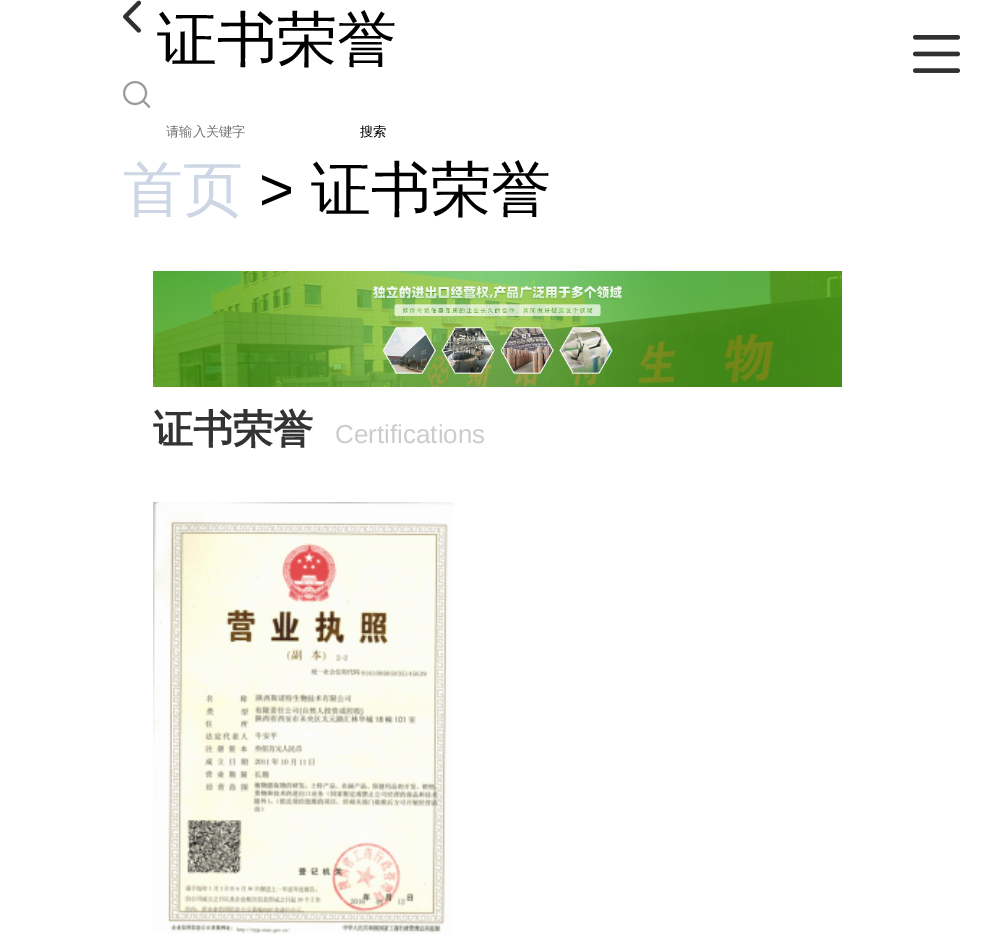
%!PS
<< /PageSize [995 941] >> setpagedevice
/gs/gsave load def
/gr/grestore load def
/co { dup -16 bitshift 255 div exch dup -8 bitshift 255 and 255 div exch 255 and 255 div setrgbcolor } def
/fn { [ exch dup neg 0 0 3 -1 roll 0 0 ] selectfont } def
/tx { co fn moveto show } def
/bx { co rectfill } def
/im { 5 dict begin { /h /w /y /x /name } { exch def } forall
  gsave x y translate w h scale
  w h 8 [w 0 0 h 0 0] name (r) file false 3 colorimage grestore end } def
0 941 translate 1 -1 scale
4 setmiterlimit
0 0 995 941 16#FFFFFF bx
(media/1.raw) 123 0 18 33 im
(media/2.raw) 913 35 47 38 im
(media/3.raw) 123 81 27 27 im
(media/4.raw) 153 271 689 116 im
(media/5.raw) 153 502 300 432 im
(证书荣誉) 157 60 /WenQuanYiZenHei-Medium 60 16#000000 tx
(请输入关键字) 166 136 /WenQuanYiZenHei-Medium 13.25 16#757575 tx
(搜索) 360 136 /WenQuanYiZenHei-Medium 13.25 16#000000 tx
(首页) 123 210 /WenQuanYiZenHei-Medium 60 16#CDD6E5 tx
(>) 259 210 /LiberationSans-Regular 60 16#000000 tx
(证书荣誉) 311 210 /WenQuanYiZenHei-Medium 60 16#000000 tx
gs
153 387 690 85 rectclip
(证书荣誉) 153 443 /WenQuanYiZenHei-Bold 40 16#333333 tx
gr
(Certifications) 335 443 /LiberationSans-Regular 26 16#CCCCCC tx
showpage
